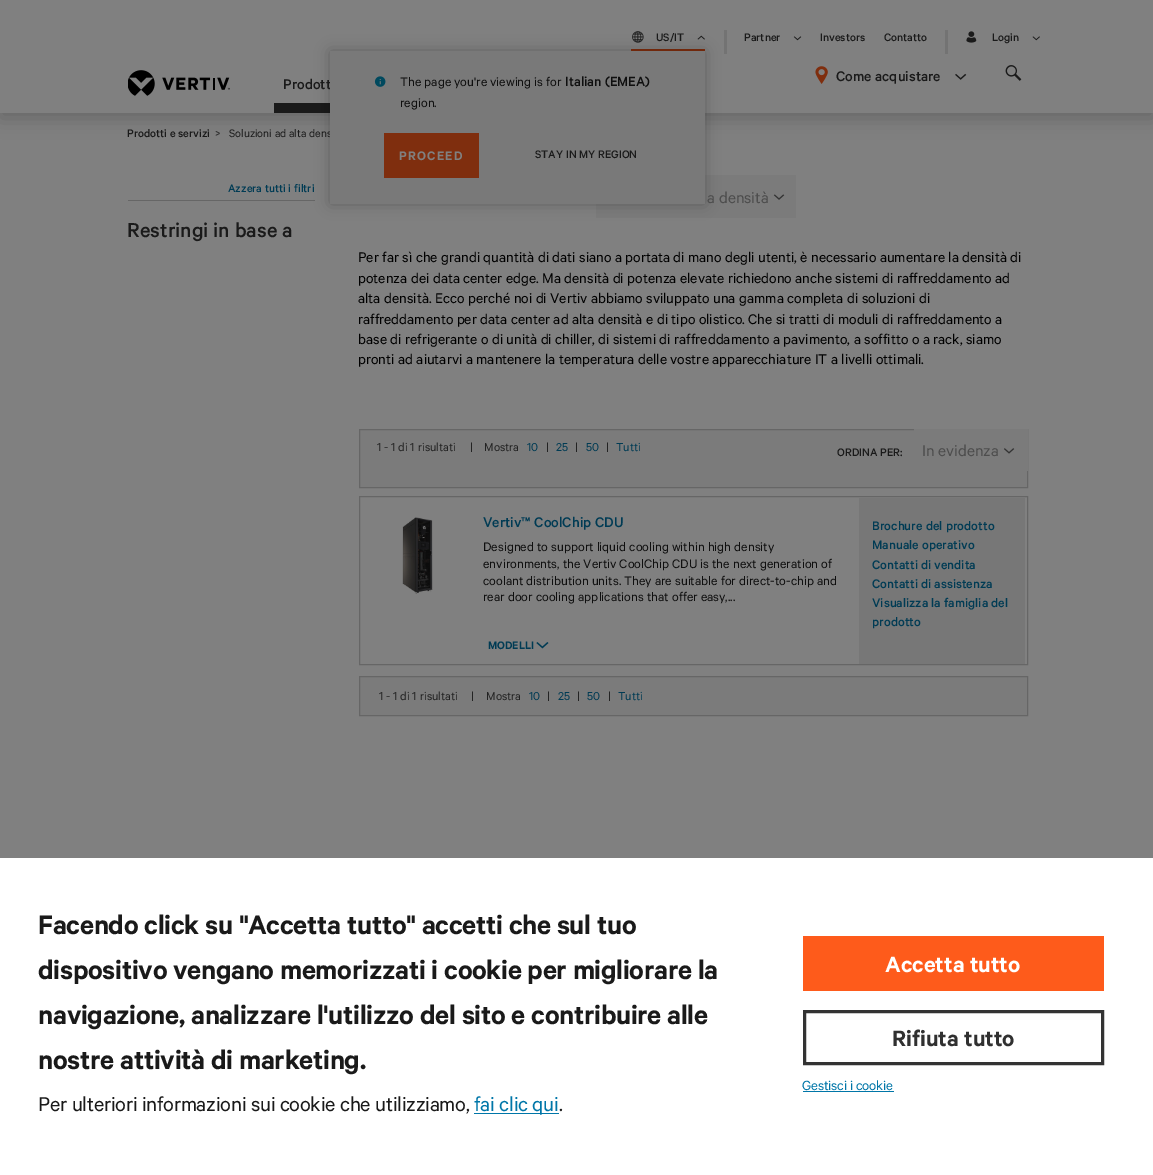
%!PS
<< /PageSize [1153 1175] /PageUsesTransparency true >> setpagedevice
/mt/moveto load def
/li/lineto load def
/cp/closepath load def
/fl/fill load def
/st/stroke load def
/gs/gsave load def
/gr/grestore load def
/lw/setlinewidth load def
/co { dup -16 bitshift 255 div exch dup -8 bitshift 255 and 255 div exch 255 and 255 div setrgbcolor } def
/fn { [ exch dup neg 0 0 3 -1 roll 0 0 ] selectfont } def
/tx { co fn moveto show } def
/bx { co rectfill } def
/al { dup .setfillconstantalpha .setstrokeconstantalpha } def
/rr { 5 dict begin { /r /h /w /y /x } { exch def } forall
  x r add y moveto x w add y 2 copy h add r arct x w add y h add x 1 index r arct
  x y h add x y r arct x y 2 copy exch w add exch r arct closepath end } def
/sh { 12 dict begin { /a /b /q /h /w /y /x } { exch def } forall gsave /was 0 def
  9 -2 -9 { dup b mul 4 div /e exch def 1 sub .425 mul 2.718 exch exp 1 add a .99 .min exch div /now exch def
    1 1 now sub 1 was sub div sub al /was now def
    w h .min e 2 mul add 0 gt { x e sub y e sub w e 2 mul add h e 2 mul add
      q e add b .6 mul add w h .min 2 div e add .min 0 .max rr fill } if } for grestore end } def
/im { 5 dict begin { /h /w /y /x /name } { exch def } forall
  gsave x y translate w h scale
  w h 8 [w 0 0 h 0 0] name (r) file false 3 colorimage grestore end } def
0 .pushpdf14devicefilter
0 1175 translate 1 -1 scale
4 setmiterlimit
0 0 1153 1175 16#808080 bx
gs
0 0 mt 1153 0 li 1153 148 li 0 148 li cp 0 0 mt 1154 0 li 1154 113 li 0 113 li cp eoclip newpath
16#000000 co
0 5 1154 113 0 9.5 .2 sh
gr
0.8 al
0 112 1153 1 16#808080 bx
1 al
631 49 74 2 16#7F2E0E bx
(media/1.raw) 632 31 12 12 im
(media/2.raw) 697 35 8 5 im
724 30 3 24 16#737373 bx
274 103 56 10 16#1A1A1A bx
128 200 187 1 16#666666 bx
596 175 200 43 16#7B7B7B bx
16#000000 co
330 51 375 153 0 7.5 .25 sh
(media/4.raw) 793 36 9 5 im
945 30 3 24 16#737373 bx
(media/5.raw) 966 31 11 12 im
(media/6.raw) 1032 36 8 5 im
(media/7.raw) 128 70 102 26 im
(media/8.raw) 815 66 13 18 im
(media/9.raw) 955 73 12 7 im
(media/10.raw) 1005 65 17 16 im
(media/11.raw) 773 194 12 6 im
16#7B7B7B co
359.5 429.5 mt 1027.5 429.5 li 1027.5 487.5 li 359.5 487.5 li cp gs fl gr
16#666666 co
st
914 429 114 42 16#7B7B7B bx
(media/12.raw) 1004 448 11 6 im
16#666666 co
359.5 496.5 668 168 rectstroke
(media/13.raw) 402 517 31 77 im
859 498 166 166 16#777777 bx
(media/14.raw) 536 642 13 7 im
16#7B7B7B co
359.5 676.5 mt 1027.5 676.5 li 1027.5 715.5 li 359.5 715.5 li cp gs fl gr
16#666666 co
st
0 858 1153 317 16#FFFFFF bx
474 1113 85 1 16#0076A8 bx
803 936 301 55 16#FE5B1B bx
16#333333 co
3 lw
804.5 1011.5 298 52 rectstroke
803 1091 91 1 16#0076A8 bx
(US/IT) 656 41 /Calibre-Medium 12.25 16#1A1A1A tx
(Partner) 744 41 /Calibre-Medium 12.25 16#1A1A1A tx
(Investors) 820 41 /Calibre-Medium 12.25 16#1A1A1A tx
(Contatto) 884 41 /Calibre-Medium 12.25 16#1A1A1A tx
(Login) 992 41 /Calibre-Medium 12.25 16#1A1A1A tx
(Prodott) 283 89 /Calibre-Medium 15.75 16#1A1A1A tx
(Come acquistare) 836 81 /Calibre-Medium 15.75 16#1A1A1A tx
(Prodotti e servizi) 127 137 /Calibre-Medium 12.25 16#1A1A1A tx
(>) 215 137 /Calibre-Medium 12.25 16#303030 tx
(Soluzioni ad alta dens) 229 137 /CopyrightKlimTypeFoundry-Regular 12.25 16#1A1A1A tx
330 51 375 153 16#797979 bx
(STAY IN MY REGION) 535 158 /Calibre-Medium 12.25 16#1A1A1A tx
384 133 95 45 16#7F2E0E bx
/Calibre-SemiBold 14 fn
16#808080 co
399 160 mt 1.25 0 (PROCEED) ashow
(region.) 400 107 /CopyrightKlimTypeFoundry-Regular 14 16#0F0F0F tx
(Italian \(EMEA\)) 565 86 /Calibre-Medium 15 16#0F0F0F tx
(The page you're viewing is for) 400 86 /CopyrightKlimTypeFoundry-Regular 14 16#0F0F0F tx
(media/3.raw) 374 76 12 11 im
(Azzera tutti i filtri) 228 192 /Calibre-Medium 12.25 16#003B54 tx
(Restringi in base a) 127 237 /Calibre-Medium 22.75 16#1A1A1A tx
(a densità) 707 203 /CopyrightKlimTypeFoundry-Regular 17.5 16#4D4D4D tx
(Per far sì che grandi quantità di dati siano a portata di mano degli utenti, è necessario aumentare la densità di) 358 262 /CopyrightKlimTypeFoundry-Regular 15.75 16#000000 tx
(potenza dei data center edge. Ma densità di potenza elevate richiedono anche sistemi di raffreddamento ad) 358 283 /CopyrightKlimTypeFoundry-Regular 15.75 16#000000 tx
(alta densità. Ecco perché noi di Vertiv abbiamo sviluppato una gamma completa di soluzioni di) 358 303 /CopyrightKlimTypeFoundry-Regular 15.75 16#000000 tx
(raffreddamento per data center ad alta densità e di tipo olistico. Che si tratti di moduli di raffreddamento a) 358 324 /CopyrightKlimTypeFoundry-Regular 15.75 16#000000 tx
(base di refrigerante o di unità di chiller, di sistemi di raffreddamento a pavimento, a soffitto o a rack, siamo) 358 344 /CopyrightKlimTypeFoundry-Regular 15.75 16#000000 tx
(pronti ad aiutarvi a mantenere la temperatura delle vostre apparecchiature IT a livelli ottimali.) 358 364 /CopyrightKlimTypeFoundry-Regular 15.75 16#000000 tx
(1 - 1 di 1 risultati) 377 451 /CopyrightKlimTypeFoundry-Regular 13 16#232323 tx
(|) 470 451 /CopyrightKlimTypeFoundry-Regular 13 16#232323 tx
(Mostra) 484 451 /CopyrightKlimTypeFoundry-Regular 13 16#232323 tx
(10) 527 451 /CopyrightKlimTypeFoundry-Regular 13 16#003B54 tx
(|) 546 451 /CopyrightKlimTypeFoundry-Regular 13 16#232323 tx
(25) 556 451 /CopyrightKlimTypeFoundry-Regular 13 16#003B54 tx
(|) 575 451 /CopyrightKlimTypeFoundry-Regular 13 16#232323 tx
(50) 586 451 /CopyrightKlimTypeFoundry-Regular 13 16#003B54 tx
(|) 606 451 /CopyrightKlimTypeFoundry-Regular 13 16#232323 tx
(Tutti) 616 451 /CopyrightKlimTypeFoundry-Regular 13 16#003B54 tx
(ORDINA PER:) 837 456 /Calibre-Medium 12.25 16#1A1A1A tx
(In evidenza) 922 456 /CopyrightKlimTypeFoundry-Regular 17.5 16#4D4D4D tx
(Vertiv™ CoolChip CDU) 483 527 /Calibre-Medium 15.75 16#003B54 tx
(Designed to support liquid cooling within high density) 483 551 /CopyrightKlimTypeFoundry-Regular 14 16#0F0F0F tx
(environments, the Vertiv CoolChip CDU is the next generation of) 483 568 /CopyrightKlimTypeFoundry-Regular 14 16#0F0F0F tx
(coolant distribution units. They are suitable for direct-to-chip and) 483 585 /CopyrightKlimTypeFoundry-Regular 14 16#0F0F0F tx
(rear door cooling applications that offer easy,...) 483 601 /CopyrightKlimTypeFoundry-Regular 14 16#0F0F0F tx
(Brochure del prodotto) 872 530 /Calibre-Medium 14 16#003B54 tx
(Manuale operativo) 872 549 /Calibre-Medium 14 16#003B54 tx
(Contatti di vendita) 872 569 /Calibre-Medium 14 16#003B54 tx
(Contatti di assistenza) 872 588 /Calibre-Medium 14 16#003B54 tx
(Visualizza la famiglia del) 872 607 /Calibre-Medium 14 16#003B54 tx
(prodotto) 872 626 /Calibre-Medium 14 16#003B54 tx
(MODELLI) 488 649 /Calibre-SemiBold 12.25 16#003B54 tx
(1 - 1 di 1 risultati) 379 700 /CopyrightKlimTypeFoundry-Regular 13 16#232323 tx
(|) 471 700 /CopyrightKlimTypeFoundry-Regular 13 16#232323 tx
(Mostra) 486 700 /CopyrightKlimTypeFoundry-Regular 13 16#232323 tx
(10) 529 700 /CopyrightKlimTypeFoundry-Regular 13 16#003B54 tx
(|) 547 700 /CopyrightKlimTypeFoundry-Regular 13 16#232323 tx
(25) 558 700 /CopyrightKlimTypeFoundry-Regular 13 16#003B54 tx
(|) 577 700 /CopyrightKlimTypeFoundry-Regular 13 16#232323 tx
(50) 587 700 /CopyrightKlimTypeFoundry-Regular 13 16#003B54 tx
(|) 608 700 /CopyrightKlimTypeFoundry-Regular 13 16#232323 tx
(Tutti) 618 700 /CopyrightKlimTypeFoundry-Regular 13 16#003B54 tx
/Calibre-SemiBold 30 fn
16#1A1A1A co
38 934 mt -.33 0 (Facendo click su "Accetta tutto" accetti che sul tuo) ashow
38 979 mt -.33 0 (dispositivo vengano memorizzati i cookie per migliorare la) ashow
38 1024 mt -.33 0 (navigazione, analizzare l'utilizzo del sito e contribuire alle) ashow
38 1069 mt -.33 0 (nostre attività di marketing.) ashow
/CopyrightKlimTypeFoundry-Regular 22.5 fn
38 1111 mt -.25 0 (Per ulteriori informazioni sui cookie che utilizziamo,) ashow
16#0076A8 co
474 1111 mt -.25 0 (fai clic qui) ashow
16#1A1A1A co
559 1111 mt -.25 0 (.) ashow
(Accetta tutto) 885 972 /Calibre-SemiBold 25 16#FFFFFF tx
(Rifiuta tutto) 892 1046 /Calibre-SemiBold 25 16#303030 tx
/CopyrightKlimTypeFoundry-Regular 15 fn
16#0076A8 co
802 1090 mt -.2 0 (Gestisci i cookie) ashow
.poppdf14devicefilter showpage
